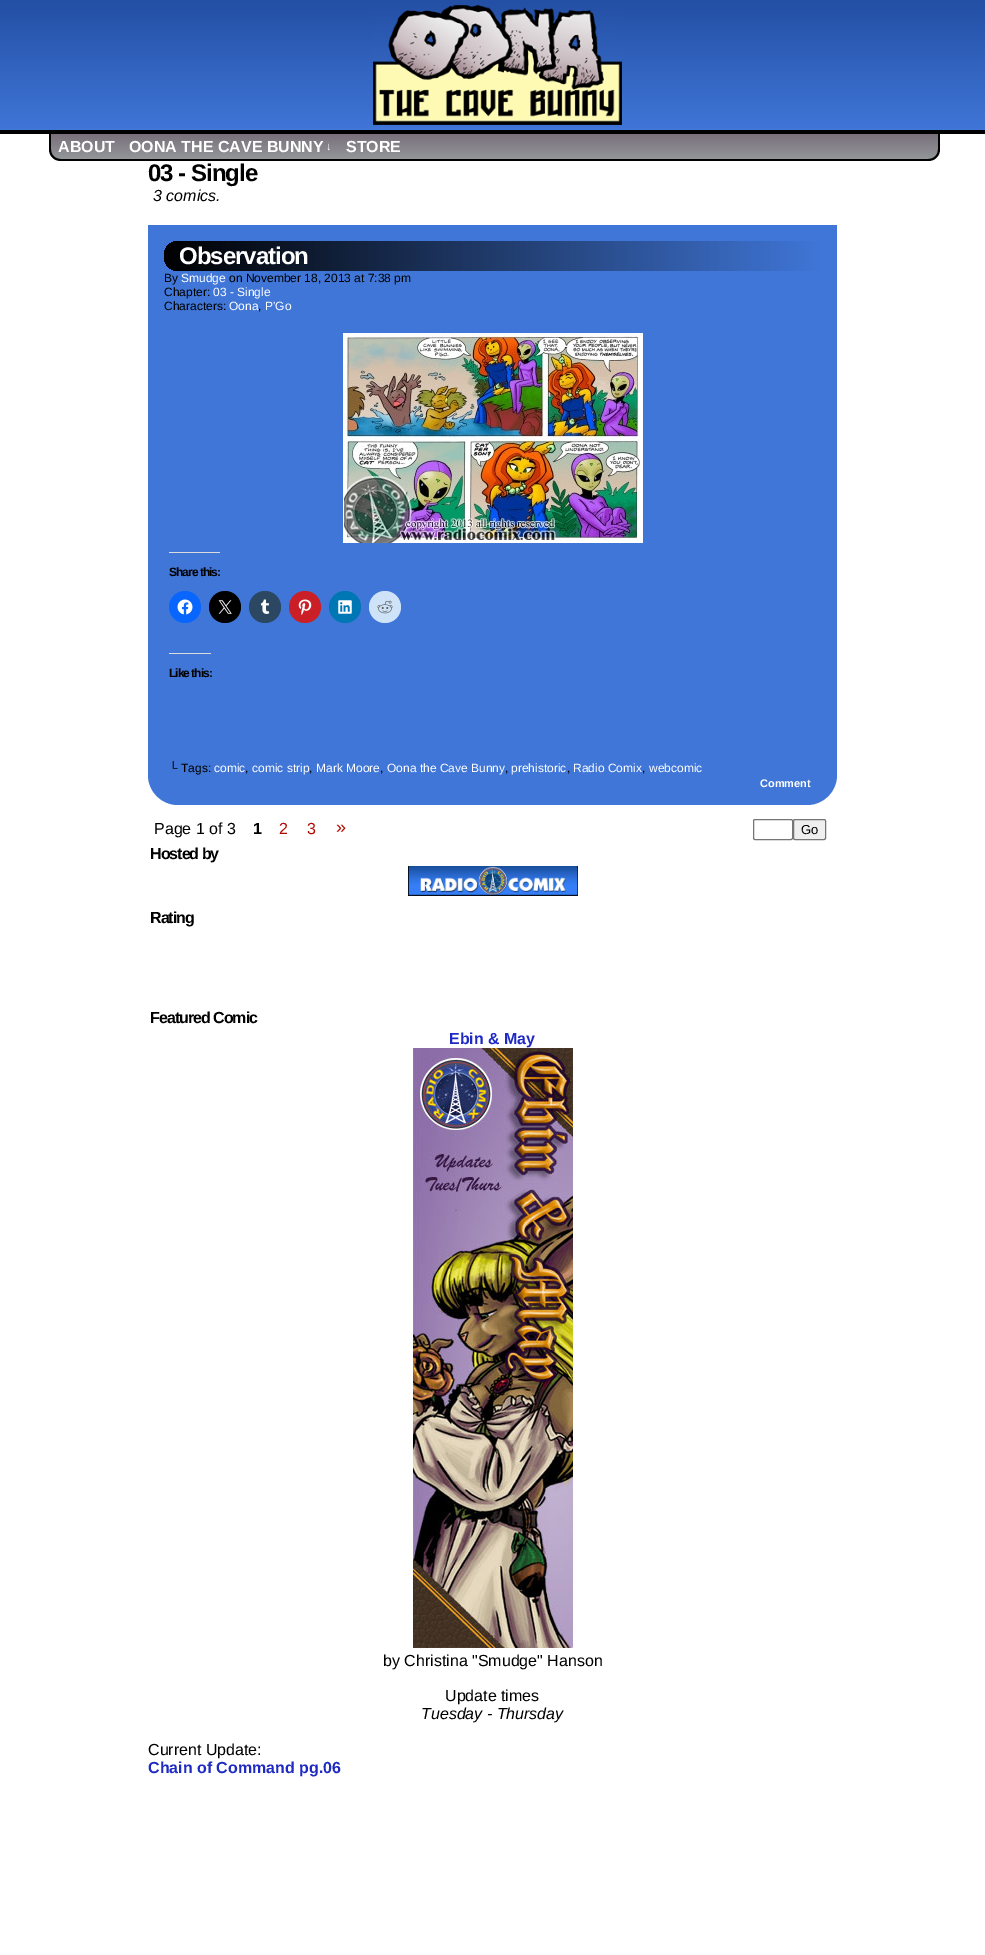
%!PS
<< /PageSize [985 1955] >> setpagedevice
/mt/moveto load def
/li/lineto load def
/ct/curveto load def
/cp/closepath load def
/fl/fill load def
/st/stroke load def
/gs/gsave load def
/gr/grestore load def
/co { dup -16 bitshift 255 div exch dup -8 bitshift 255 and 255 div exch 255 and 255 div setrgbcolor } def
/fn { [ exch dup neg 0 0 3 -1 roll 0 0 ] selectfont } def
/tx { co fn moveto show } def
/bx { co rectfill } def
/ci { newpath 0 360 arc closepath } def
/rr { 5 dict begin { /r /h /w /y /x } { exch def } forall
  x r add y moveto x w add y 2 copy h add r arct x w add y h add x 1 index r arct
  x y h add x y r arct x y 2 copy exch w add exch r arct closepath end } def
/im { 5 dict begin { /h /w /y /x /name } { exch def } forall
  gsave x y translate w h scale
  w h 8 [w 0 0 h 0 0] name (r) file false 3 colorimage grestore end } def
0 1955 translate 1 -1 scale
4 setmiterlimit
0 0 985 1955 16#FFFFFF bx
gs 0 0 mt 985 0 li 985 130 li 0 130 li cp clip newpath
<< /ShadingType 2 /ColorSpace /DeviceRGB /Coords [493 0 493 130] /Extend [true true] /Function << /FunctionType 2 /Domain [0 1] /C0 [.137 .31 .643] /C1 [.251 .463 .843] /N 1 >> >> shfill gr
0 130 985 4 16#000000 bx
(media/1.raw) 373 5 249 120 im
49 134 mt 936 134 li 936 147 li 936 153.5 930.5 159 924 159 ct 61 159 li 54.5 159 49 153.5 49 147 ct cp fl
gs 51 134 mt 938 134 li 938 149 li 938 154.5 933.5 159 928 159 ct 61 159 li 55.5 159 51 154.5 51 149 ct cp clip newpath
<< /ShadingType 2 /ColorSpace /DeviceRGB /Coords [495 134 495 159] /Extend [true true] /Function << /FunctionType 2 /Domain [0 1] /C0 [.475 .435 .486] /C1 [.576 .592 .596] /N 1 >> >> shfill gr
49 134 mt 940 134 li 940 149 li 940 156 935 161 928 161 ct 61 161 li 54 161 49 156 49 149 ct cp 51 134 mt 938 134 li 938 149 li 938 155 934 159 928 159 ct 61 159 li 55 159 51 155 51 149 ct cp eofill
16#4076D7 co
148 225 mt 837 225 li 837 775 li 837 791.5 823.5 805 807 805 ct 178 805 li 161.5 805 148 791.5 148 775 ct cp fl
gs 179 241 mt 821 241 li 821 271 li 179 271 li 170.5 271 164 264.5 164 256 ct 164 247.5 170.5 241 179 241 ct cp clip newpath
<< /ShadingType 2 /ColorSpace /DeviceRGB /Coords [164 256 821 256] /Extend [true true] /Function << /FunctionType 2 /Domain [0 1] /C0 [0 0 0] /C1 [.251 .463 .843] /N 1 >> >> shfill gr
(media/2.raw) 343 333 300 210 im
169 552 51 1 16#DCDCDE bx
16#0866FF co
185 607 16 ci fl
(media/3.raw) 177 599 16 16 im
16#000000 co
225 607 16 ci fl
(media/4.raw) 218 600 14 14 im
16#2C4762 co
265 607 16 ci fl
(media/5.raw) 260 599 10 15 im
16#CA1F27 co
305 607 16 ci fl
(media/6.raw) 298 599 14 16 im
16#0077B5 co
345 607 16 ci fl
(media/7.raw) 338 600 14 14 im
16#CEE3F8 co
385 607 16 ci fl
(media/8.raw) 377 600 16 14 im
169 653 42 1 16#DCDCDE bx
16#767676 co
753.5 819.5 39 20 1.5 rr st
16#EFEFEF co
793.5 819.5 32 20 1.5 rr gs fl gr
16#767676 co
st
(media/9.raw) 408 866 170 30 im
(media/10.raw) 413 1048 160 600 im
(ABOUT) 58 152 /LiberationSans-Bold 16 16#FFFFFF tx
(OONA THE CAVE BUNNY) 129 152 /LiberationSans-Bold 16 16#FFFFFF tx
(↓) 326 150 /LiberationSans-Bold 11 16#FFFFFF tx
(STORE) 346 152 /LiberationSans-Bold 16 16#FFFFFF tx
/LiberationSans-Bold 24 fn
16#000000 co
148 181 mt -1 0 (03 - Single) ashow
(3 comics.) 153 201 /LiberationSans-Italic 16 16#000000 tx
/LiberationSans-Bold 24 fn
16#FFFFFF co
179 264 mt -1 0 (Observation) ashow
(By) 164 282 /LiberationSans-Regular 12 16#000000 tx
(Smudge) 181 282 /LiberationSans-Regular 12 16#FFFFFF tx
(on November 18, 2013 at 7:38 pm) 229 282 /LiberationSans-Regular 12 16#000000 tx
(Chapter:) 164 296 /LiberationSans-Regular 12 16#000000 tx
(03 - Single) 213 296 /LiberationSans-Regular 12 16#FFFFFF tx
(Characters:) 164 310 /LiberationSans-Regular 12 16#000000 tx
(Oona) 229 310 /LiberationSans-Regular 12 16#FFFFFF tx
(,) 258 310 /LiberationSans-Regular 12 16#000000 tx
(P'Go) 265 310 /LiberationSans-Regular 12 16#FFFFFF tx
/LiberationSans-Bold 12 fn
16#000000 co
169 576 mt -1 0 (Share this:) ashow
169 677 mt -1 0 (Like this:) ashow
(└ Tags:) 169 772 /LiberationSans-Regular 12 16#000000 tx
(comic) 214 772 /LiberationSans-Regular 12 16#FFFFFF tx
(,) 245 772 /LiberationSans-Regular 12 16#000000 tx
(comic strip) 252 772 /LiberationSans-Regular 12 16#FFFFFF tx
(,) 309 772 /LiberationSans-Regular 12 16#000000 tx
(Mark Moore) 316 772 /LiberationSans-Regular 12 16#FFFFFF tx
(,) 380 772 /LiberationSans-Regular 12 16#000000 tx
(Oona the Cave Bunny) 387 772 /LiberationSans-Regular 12 16#FFFFFF tx
(,) 505 772 /LiberationSans-Regular 12 16#000000 tx
(prehistoric) 511 772 /LiberationSans-Regular 12 16#FFFFFF tx
(,) 567 772 /LiberationSans-Regular 12 16#000000 tx
(Radio Comix) 573 772 /LiberationSans-Regular 12 16#FFFFFF tx
(,) 642 772 /LiberationSans-Regular 12 16#000000 tx
(webcomic) 649 772 /LiberationSans-Regular 12 16#FFFFFF tx
(Comment) 760 787 /LiberationSans-Bold 11 16#FFFFFF tx
(Page 1 of 3) 154 834 /LiberationSans-Regular 16 16#000000 tx
(1) 253 834 /LiberationSans-Bold 16 16#000000 tx
(2) 279 834 /LiberationSans-Regular 16 16#B00B00 tx
(3) 307 834 /LiberationSans-Regular 16 16#B00B00 tx
(») 336 833 /LiberationSans-Regular 18 16#B00B00 tx
(Go) 801 834 /LiberationSans-Regular 13 16#000000 tx
/LiberationSans-Bold 16 fn
150 859 mt -1 0 (Hosted by) ashow
150 923 mt -1 0 (Rating) ashow
150 1023 mt -1 0 (Featured Comic) ashow
(Ebin & May) 449 1044 /LiberationSans-Bold 16 16#1F2AC4 tx
(by Christina "Smudge" Hanson) 383 1666 /LiberationSans-Regular 16 16#000000 tx
(Update times) 445 1701 /LiberationSans-Regular 16 16#000000 tx
(Tuesday - Thursday) 421 1719 /LiberationSans-Italic 16 16#000000 tx
(Current Update:) 148 1755 /LiberationSans-Regular 16 16#000000 tx
(Chain of Command pg.06) 148 1773 /LiberationSans-Bold 16 16#1F2AC4 tx
showpage
